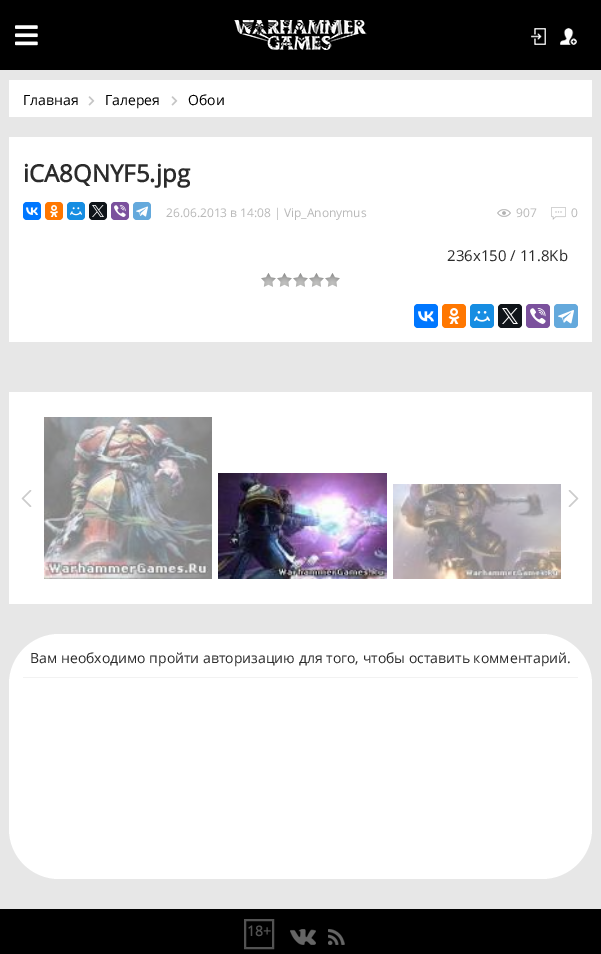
%!PS
<< /PageSize [601 954] >> setpagedevice
/fl/fill load def
/lw/setlinewidth load def
/co { dup -16 bitshift 255 div exch dup -8 bitshift 255 and 255 div exch 255 and 255 div setrgbcolor } def
/fn { [ exch dup neg 0 0 3 -1 roll 0 0 ] selectfont } def
/tx { co fn moveto show } def
/bx { co rectfill } def
/rr { 5 dict begin { /r /h /w /y /x } { exch def } forall
  x r add y moveto x w add y 2 copy h add r arct x w add y h add x 1 index r arct
  x y h add x y r arct x y 2 copy exch w add exch r arct closepath end } def
/im { 5 dict begin { /h /w /y /x /name } { exch def } forall
  gsave x y translate w h scale
  w h 8 [w 0 0 h 0 0] name (r) file false 3 colorimage grestore end } def
0 954 translate 1 -1 scale
4 setmiterlimit
0 0 601 954 16#000000 bx
(media/1.raw) 15 25 23 21 im
(media/2.raw) 234 20 133 30 im
(media/3.raw) 531 28 15 17 im
(media/4.raw) 560 28 17 17 im
0 70 601 839 16#E7E7E7 bx
9 80 583 37 16#FFFFFF bx
(media/5.raw) 88 96 7 10 im
(media/5.raw) 171 96 7 10 im
9 137 583 205 16#FFFFFF bx
16#0077FF co
23 202 18 18 4 rr fl
(media/6.raw) 26 207 12 8 im
16#FF7700 co
45 202 18 18 4 rr fl
(media/7.raw) 50 205 8 12 im
16#168DE2 co
67 202 18 18 4 rr fl
(media/8.raw) 70 207 12 9 im
16#0F1419 co
89 202 18 18 4 rr fl
(media/9.raw) 92 205 12 12 im
16#7B519D co
111 202 18 18 4 rr fl
(media/10.raw) 114 205 12 12 im
16#64A9DC co
133 202 18 18 4 rr fl
(media/11.raw) 136 206 12 11 im
(media/12.raw) 497 209 14 8 im
(media/13.raw) 551 207 15 13 im
(media/14.raw) 261 273 79 14 im
16#0077FF co
414 304 24 24 4 rr fl
(media/15.raw) 418 311 16 11 im
16#FF7700 co
442 304 24 24 4 rr fl
(media/16.raw) 448 308 12 16 im
16#168DE2 co
470 304 24 24 4 rr fl
(media/17.raw) 474 311 16 11 im
16#0F1419 co
498 304 24 24 4 rr fl
(media/18.raw) 502 308 16 16 im
16#7B519D co
526 304 24 24 4 rr fl
(media/19.raw) 530 308 16 16 im
16#64A9DC co
554 304 24 24 4 rr fl
(media/20.raw) 558 310 16 14 im
9 392 583 212 16#FFFFFF bx
(media/21.raw) 21 490 11 17 im
(media/22.raw) 44 417 168 162 im
(media/23.raw) 218 473 169 106 im
(media/24.raw) 393 484 168 95 im
(media/25.raw) 568 490 11 17 im
9 634 583 245 50 rr fl
23 677 555 1 16#F2F2F2 bx
16#525252 co
2 lw
245 920 28 28 rectstroke
(media/26.raw) 290 929 26 16 im
(media/27.raw) 328 929 17 16 im
(Главная) 23 105 /OpenSans-Regular 14 16#000000 tx
(Галерея) 105 105 /OpenSans-Regular 14 16#000000 tx
(Обои) 188 105 /OpenSans-Regular 14 16#000000 tx
(iCA8QNYF5.jpg) 23 182 /OpenSans-Bold 24 16#2B2B2B tx
(26.06.2013 в 14:08 | Vip_Anonymus) 166 217 /OpenSans-Regular 12 16#B9B9B9 tx
(907) 516 217 /OpenSans-Regular 12 16#B9B9B9 tx
(0) 571 217 /OpenSans-Regular 12 16#B9B9B9 tx
(236x150 / 11.8Kb) 447 261 /OpenSans-Regular 15 16#2B2B2B tx
(Вам необходимо пройти авторизацию для того, чтобы оставить комментарий.) 30 663 /OpenSans-Regular 14 16#2B2B2B tx
(18+) 247 936 /OpenSans-Bold 14 16#525252 tx
showpage
